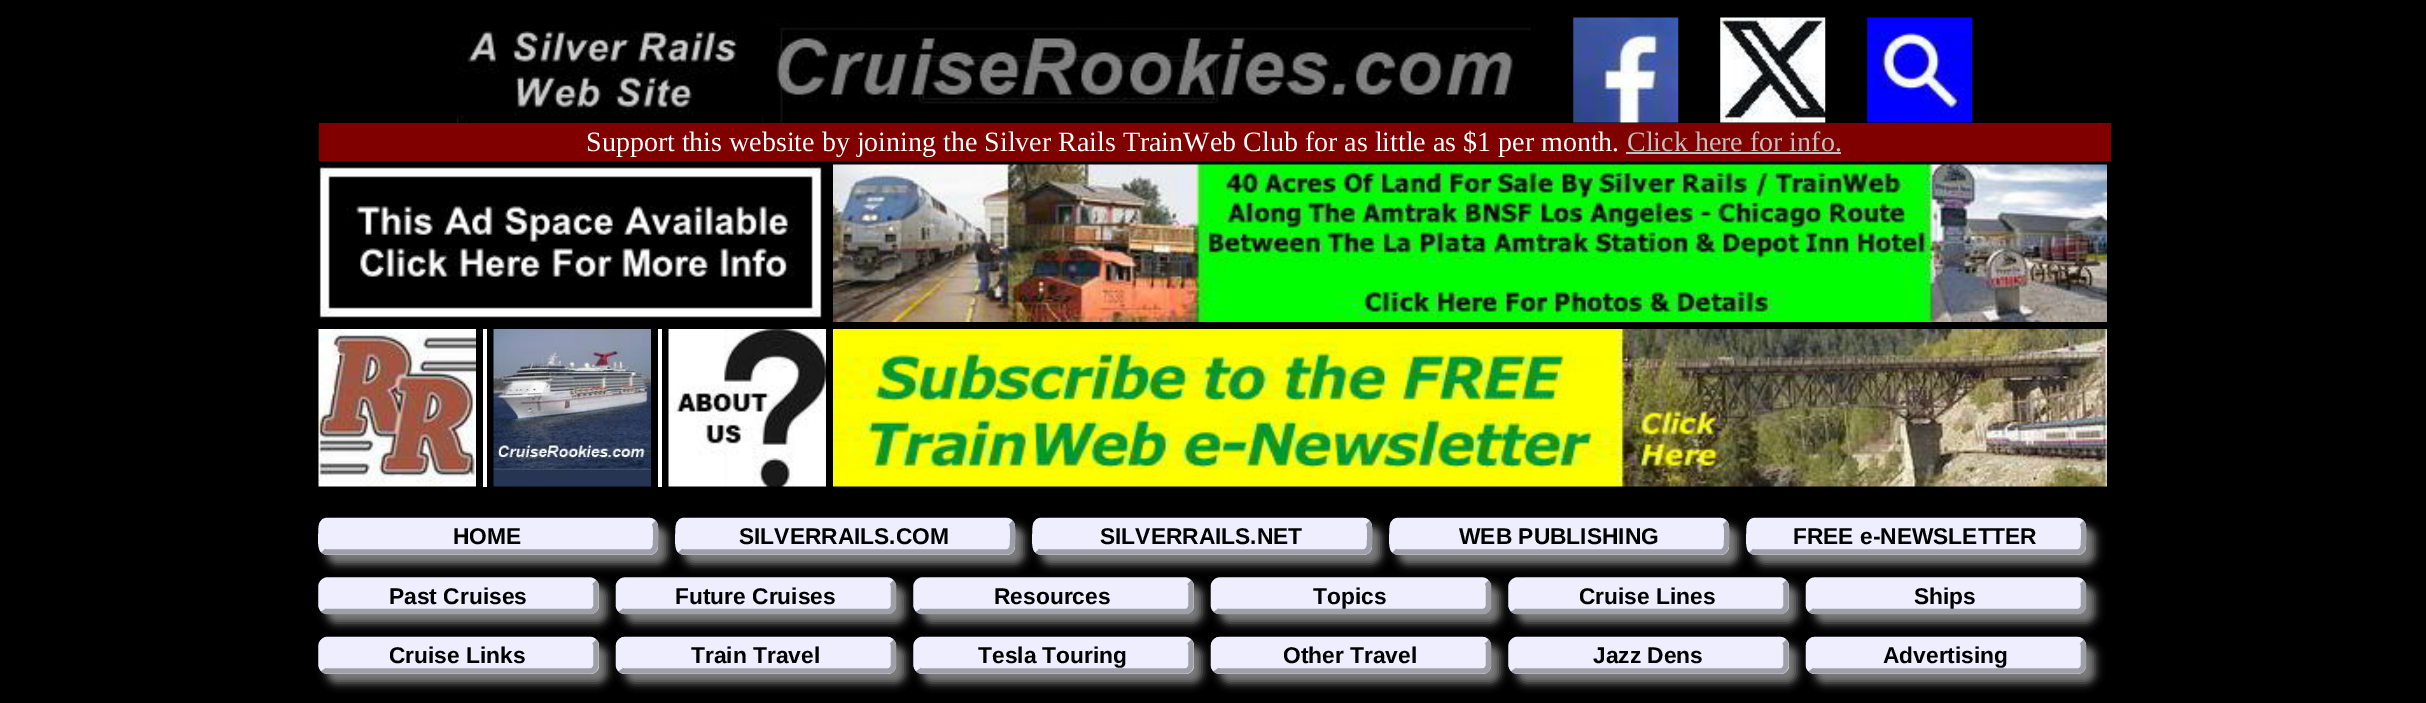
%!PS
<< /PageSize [2426 703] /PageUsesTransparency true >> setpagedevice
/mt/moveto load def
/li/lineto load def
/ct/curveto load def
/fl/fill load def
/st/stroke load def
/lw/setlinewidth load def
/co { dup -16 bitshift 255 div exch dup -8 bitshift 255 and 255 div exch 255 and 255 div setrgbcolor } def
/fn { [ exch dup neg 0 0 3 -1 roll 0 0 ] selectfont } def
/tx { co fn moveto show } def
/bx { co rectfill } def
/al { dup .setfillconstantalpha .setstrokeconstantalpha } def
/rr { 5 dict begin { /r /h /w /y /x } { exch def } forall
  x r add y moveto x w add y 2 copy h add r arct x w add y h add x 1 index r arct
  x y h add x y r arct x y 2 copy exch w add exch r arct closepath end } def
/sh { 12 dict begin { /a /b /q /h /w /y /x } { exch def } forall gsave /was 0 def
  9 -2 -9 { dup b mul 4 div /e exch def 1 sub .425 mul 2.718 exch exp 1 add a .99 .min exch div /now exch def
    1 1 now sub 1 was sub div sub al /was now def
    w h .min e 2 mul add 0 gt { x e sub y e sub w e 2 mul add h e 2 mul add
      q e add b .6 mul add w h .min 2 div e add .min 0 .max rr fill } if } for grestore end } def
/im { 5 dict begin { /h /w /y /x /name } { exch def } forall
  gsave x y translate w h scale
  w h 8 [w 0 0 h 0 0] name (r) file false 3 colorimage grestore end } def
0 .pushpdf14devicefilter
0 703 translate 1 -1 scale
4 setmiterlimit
0 0 2426 703 16#000000 bx
(media/1.raw) 456 31 281 92 im
(media/2.raw) 761 20 770 103 im
(media/3.raw) 1573 17 106 106 im
(media/4.raw) 1720 17 106 106 im
(media/5.raw) 1867 17 106 106 im
319 123 1792 38 16#800000 bx
1626 152 215 2 16#C0C0C0 bx
(media/6.raw) 319 164 503 155 im
(media/7.raw) 833 164 1274 158 im
(media/8.raw) 318 329 158 158 im
483 329 4 158 16#FFFFFF bx
(media/9.raw) 493 329 158 158 im
658 329 4 158 16#FFFFFF bx
(media/10.raw) 668 329 158 158 im
(media/11.raw) 833 329 1274 158 im
16#808080 co
327 527 340 37 9 4.5 1 sh
16#EEEEFF co
319 518 339 37 9 rr fl
16#9F9FAA co
5.2 lw
653.5 522.5 mt 657 525.5 655.5 538.5 655.5 543 ct 655.5 547 654.5 552 649 552 ct 327 552 li 325.5 552 324 551.5 323 550.5 ct st
16#EEEEFF co
323 550.5 mt 319.5 547 321 534.5 321 530 ct 321 525.5 322 520.5 327 520.5 ct 649 520.5 li 651 520.5 652.5 521.5 653.5 522.5 ct st
16#808080 co
684 527 340 37 9 4.5 1 sh
16#EEEEFF co
676 518 339 37 9 rr fl
16#9F9FAA co
1010.5 522.5 mt 1014 525.5 1012.5 538.5 1012.5 543 ct 1012.5 547 1011.5 552 1006 552 ct 684 552 li 682.5 552 681 551.5 680 550.5 ct st
16#EEEEFF co
680 550.5 mt 676.5 547 678 534.5 678 530 ct 678 525.5 679 520.5 684 520.5 ct 1006 520.5 li 1008 520.5 1009.5 521.5 1010.5 522.5 ct st
16#808080 co
1041 527 340 37 9 4.5 1 sh
16#EEEEFF co
1033 518 339 37 9 rr fl
16#9F9FAA co
1367.5 522.5 mt 1371 525.5 1369.5 538.5 1369.5 543 ct 1369.5 547 1368.5 552 1363 552 ct 1041 552 li 1039.5 552 1038 551.5 1037 550.5 ct st
16#EEEEFF co
1037 550.5 mt 1033.5 547 1035 534.5 1035 530 ct 1035 525.5 1036 520.5 1041 520.5 ct 1363 520.5 li 1365 520.5 1366.5 521.5 1367.5 522.5 ct st
16#808080 co
1398 527 340 37 9 4.5 1 sh
16#EEEEFF co
1390 518 339 37 9 rr fl
16#9F9FAA co
1724.5 522.5 mt 1728 525.5 1726.5 538.5 1726.5 543 ct 1726.5 547 1725.5 552 1720 552 ct 1398 552 li 1396.5 552 1395 551.5 1394 550.5 ct st
16#EEEEFF co
1394 550.5 mt 1390.5 547 1392 534.5 1392 530 ct 1392 525.5 1393 520.5 1398 520.5 ct 1720 520.5 li 1722 520.5 1723.5 521.5 1724.5 522.5 ct st
16#808080 co
1755 527 340 37 9 4.5 1 sh
16#EEEEFF co
1747 518 339 37 9 rr fl
16#9F9FAA co
2081.5 522.5 mt 2085 525.5 2083.5 538.5 2083.5 543 ct 2083.5 547 2082.5 552 2077 552 ct 1755 552 li 1753.5 552 1752 551.5 1751 550.5 ct st
16#EEEEFF co
1751 550.5 mt 1747.5 547 1749 534.5 1749 530 ct 1749 525.5 1750 520.5 1755 520.5 ct 2077 520.5 li 2079 520.5 2080.5 521.5 2081.5 522.5 ct st
16#808080 co
327 586 280 37 9 4.5 1 sh
16#EEEEFF co
319 578 280 36 9 rr fl
16#9F9FAA co
594 582 mt 595 583 596 584.5 596 586 ct 596 605.5 li 596 607 595 608.5 594 610 ct 593 611 591.5 611.5 590 611.5 ct 327 611.5 li 325.5 611.5 324 611 323 610 ct st
16#EEEEFF co
323 610 mt 322 608.5 321 607 321 605.5 ct 321 586 li 321 584.5 322 583 323 582 ct 324 581 325.5 580 327 580 ct 590 580 li 591.5 580 593 581 594 582 ct st
16#808080 co
625 586 280 37 9 4.5 1 sh
16#EEEEFF co
616 578 280 36 9 rr fl
16#9F9FAA co
891.5 582 mt 892.5 583 893.5 584.5 893.5 586 ct 893.5 605.5 li 893.5 607 892.5 608.5 891.5 610 ct 890.5 611 889 611.5 887 611.5 ct 625 611.5 li 623 611.5 621.5 611 620.5 610 ct st
16#EEEEFF co
620.5 610 mt 619.5 608.5 618.5 607 618.5 605.5 ct 618.5 586 li 618.5 584.5 619.5 583 620.5 582 ct 621.5 581 623 580 625 580 ct 887 580 li 889 580 890.5 581 891.5 582 ct st
16#808080 co
922 586 280 37 9 4.5 1 sh
16#EEEEFF co
914 578 280 36 9 rr fl
16#9F9FAA co
1189 582 mt 1190 583 1191 584.5 1191 586 ct 1191 605.5 li 1191 607 1190 608.5 1189 610 ct 1188 611 1186.5 611.5 1185 611.5 ct 922 611.5 li 920.5 611.5 919 611 918 610 ct st
16#EEEEFF co
918 610 mt 917 608.5 916 607 916 605.5 ct 916 586 li 916 584.5 917 583 918 582 ct 919 581 920.5 580 922 580 ct 1185 580 li 1186.5 580 1188 581 1189 582 ct st
16#808080 co
1220 586 280 37 9 4.5 1 sh
16#EEEEFF co
1211 578 280 36 9 rr fl
16#9F9FAA co
1486.5 582 mt 1487.5 583 1488.5 584.5 1488.5 586 ct 1488.5 605.5 li 1488.5 607 1487.5 608.5 1486.5 610 ct 1485.5 611 1484 611.5 1482 611.5 ct 1220 611.5 li 1218 611.5 1216.5 611 1215.5 610 ct st
16#EEEEFF co
1215.5 610 mt 1214.5 608.5 1213.5 607 1213.5 605.5 ct 1213.5 586 li 1213.5 584.5 1214.5 583 1215.5 582 ct 1216.5 581 1218 580 1220 580 ct 1482 580 li 1484 580 1485.5 581 1486.5 582 ct st
16#808080 co
1517 586 280 37 9 4.5 1 sh
16#EEEEFF co
1509 578 280 36 9 rr fl
16#9F9FAA co
1784 582 mt 1785 583 1786 584.5 1786 586 ct 1786 605.5 li 1786 607 1785 608.5 1784 610 ct 1783 611 1781.5 611.5 1780 611.5 ct 1517 611.5 li 1515.5 611.5 1514 611 1513 610 ct st
16#EEEEFF co
1513 610 mt 1512 608.5 1511 607 1511 605.5 ct 1511 586 li 1511 584.5 1512 583 1513 582 ct 1514 581 1515.5 580 1517 580 ct 1780 580 li 1781.5 580 1783 581 1784 582 ct st
16#808080 co
1815 586 280 37 9 4.5 1 sh
16#EEEEFF co
1806 578 280 36 9 rr fl
16#9F9FAA co
2081.5 582 mt 2082.5 583 2083.5 584.5 2083.5 586 ct 2083.5 605.5 li 2083.5 607 2082.5 608.5 2081.5 610 ct 2080.5 611 2079 611.5 2077 611.5 ct 1815 611.5 li 1813 611.5 1811.5 611 1810.5 610 ct st
16#EEEEFF co
1810.5 610 mt 1809.5 608.5 1808.5 607 1808.5 605.5 ct 1808.5 586 li 1808.5 584.5 1809.5 583 1810.5 582 ct 1811.5 581 1813 580 1815 580 ct 2077 580 li 2079 580 2080.5 581 2081.5 582 ct st
16#808080 co
327 646 280 37 9 4.5 1 sh
16#EEEEFF co
319 637 280 37 9 rr fl
16#9F9FAA co
594 641.5 mt 595 642.5 596 644 596 646 ct 596 665 li 596 666.5 595 668 594 669.5 ct 593 670.5 591.5 671 590 671 ct 327 671 li 325.5 671 324 670.5 323 669.5 ct st
16#EEEEFF co
323 669.5 mt 322 668 321 666.5 321 665 ct 321 646 li 321 644 322 642.5 323 641.5 ct 324 640.5 325.5 639.5 327 639.5 ct 590 639.5 li 591.5 639.5 593 640.5 594 641.5 ct st
16#808080 co
625 646 280 37 9 4.5 1 sh
16#EEEEFF co
616 637 280 37 9 rr fl
16#9F9FAA co
891.5 641.5 mt 892.5 642.5 893.5 644 893.5 646 ct 893.5 665 li 893.5 666.5 892.5 668 891.5 669.5 ct 890.5 670.5 889 671 887 671 ct 625 671 li 623 671 621.5 670.5 620.5 669.5 ct st
16#EEEEFF co
620.5 669.5 mt 619.5 668 618.5 666.5 618.5 665 ct 618.5 646 li 618.5 644 619.5 642.5 620.5 641.5 ct 621.5 640.5 623 639.5 625 639.5 ct 887 639.5 li 889 639.5 890.5 640.5 891.5 641.5 ct st
16#808080 co
922 646 280 37 9 4.5 1 sh
16#EEEEFF co
914 637 280 37 9 rr fl
16#9F9FAA co
1189 641.5 mt 1190 642.5 1191 644 1191 646 ct 1191 665 li 1191 666.5 1190 668 1189 669.5 ct 1188 670.5 1186.5 671 1185 671 ct 922 671 li 920.5 671 919 670.5 918 669.5 ct st
16#EEEEFF co
918 669.5 mt 917 668 916 666.5 916 665 ct 916 646 li 916 644 917 642.5 918 641.5 ct 919 640.5 920.5 639.5 922 639.5 ct 1185 639.5 li 1186.5 639.5 1188 640.5 1189 641.5 ct st
16#808080 co
1220 646 280 37 9 4.5 1 sh
16#EEEEFF co
1211 637 280 37 9 rr fl
16#9F9FAA co
1486.5 641.5 mt 1487.5 642.5 1488.5 644 1488.5 646 ct 1488.5 665 li 1488.5 666.5 1487.5 668 1486.5 669.5 ct 1485.5 670.5 1484 671 1482 671 ct 1220 671 li 1218 671 1216.5 670.5 1215.5 669.5 ct st
16#EEEEFF co
1215.5 669.5 mt 1214.5 668 1213.5 666.5 1213.5 665 ct 1213.5 646 li 1213.5 644 1214.5 642.5 1215.5 641.5 ct 1216.5 640.5 1218 639.5 1220 639.5 ct 1482 639.5 li 1484 639.5 1485.5 640.5 1486.5 641.5 ct st
16#808080 co
1517 646 280 37 9 4.5 1 sh
16#EEEEFF co
1509 637 280 37 9 rr fl
16#9F9FAA co
1784 641.5 mt 1785 642.5 1786 644 1786 646 ct 1786 665 li 1786 666.5 1785 668 1784 669.5 ct 1783 670.5 1781.5 671 1780 671 ct 1517 671 li 1515.5 671 1514 670.5 1513 669.5 ct st
16#EEEEFF co
1513 669.5 mt 1512 668 1511 666.5 1511 665 ct 1511 646 li 1511 644 1512 642.5 1513 641.5 ct 1514 640.5 1515.5 639.5 1517 639.5 ct 1780 639.5 li 1781.5 639.5 1783 640.5 1784 641.5 ct st
16#808080 co
1815 646 280 37 9 4.5 1 sh
16#EEEEFF co
1806 637 280 37 9 rr fl
16#9F9FAA co
2081.5 641.5 mt 2082.5 642.5 2083.5 644 2083.5 646 ct 2083.5 665 li 2083.5 666.5 2082.5 668 2081.5 669.5 ct 2080.5 670.5 2079 671 2077 671 ct 1815 671 li 1813 671 1811.5 670.5 1810.5 669.5 ct st
16#EEEEFF co
1810.5 669.5 mt 1809.5 668 1808.5 666.5 1808.5 665 ct 1808.5 646 li 1808.5 644 1809.5 642.5 1810.5 641.5 ct 1811.5 640.5 1813 639.5 1815 639.5 ct 2077 639.5 li 2079 639.5 2080.5 640.5 2081.5 641.5 ct st
(Support this website by joining the Silver Rails TrainWeb Club for as little as $1 per month.) 586 151 /LiberationSerif-Regular 28 16#FFFFFF tx
(Click here for info.) 1627 151 /LiberationSerif-Regular 28 16#C0C0C0 tx
(HOME) 453 544 /LiberationSans-Bold 22.75 16#000000 tx
(SILVERRAILS.COM) 739 544 /LiberationSans-Bold 22.75 16#000000 tx
(SILVERRAILS.NET) 1100 544 /LiberationSans-Bold 22.75 16#000000 tx
(WEB PUBLISHING) 1459 544 /LiberationSans-Bold 22.75 16#000000 tx
(FREE e-NEWSLETTER) 1793 544 /LiberationSans-Bold 22.75 16#000000 tx
(Past Cruises) 389 604 /LiberationSans-Bold 22.75 16#000000 tx
(Future Cruises) 675 604 /LiberationSans-Bold 22.75 16#000000 tx
(Resources) 994 604 /LiberationSans-Bold 22.75 16#000000 tx
(Topics) 1313 604 /LiberationSans-Bold 22.75 16#000000 tx
(Cruise Lines) 1579 604 /LiberationSans-Bold 22.75 16#000000 tx
(Ships) 1914 604 /LiberationSans-Bold 22.75 16#000000 tx
(Cruise Links) 389 663 /LiberationSans-Bold 22.75 16#000000 tx
(Train Travel) 691 663 /LiberationSans-Bold 22.75 16#000000 tx
(Tesla Touring) 978 663 /LiberationSans-Bold 22.75 16#000000 tx
(Other Travel) 1283 663 /LiberationSans-Bold 22.75 16#000000 tx
(Jazz Dens) 1593 663 /LiberationSans-Bold 22.75 16#000000 tx
(Advertising) 1883 663 /LiberationSans-Bold 22.75 16#000000 tx
.poppdf14devicefilter showpage
